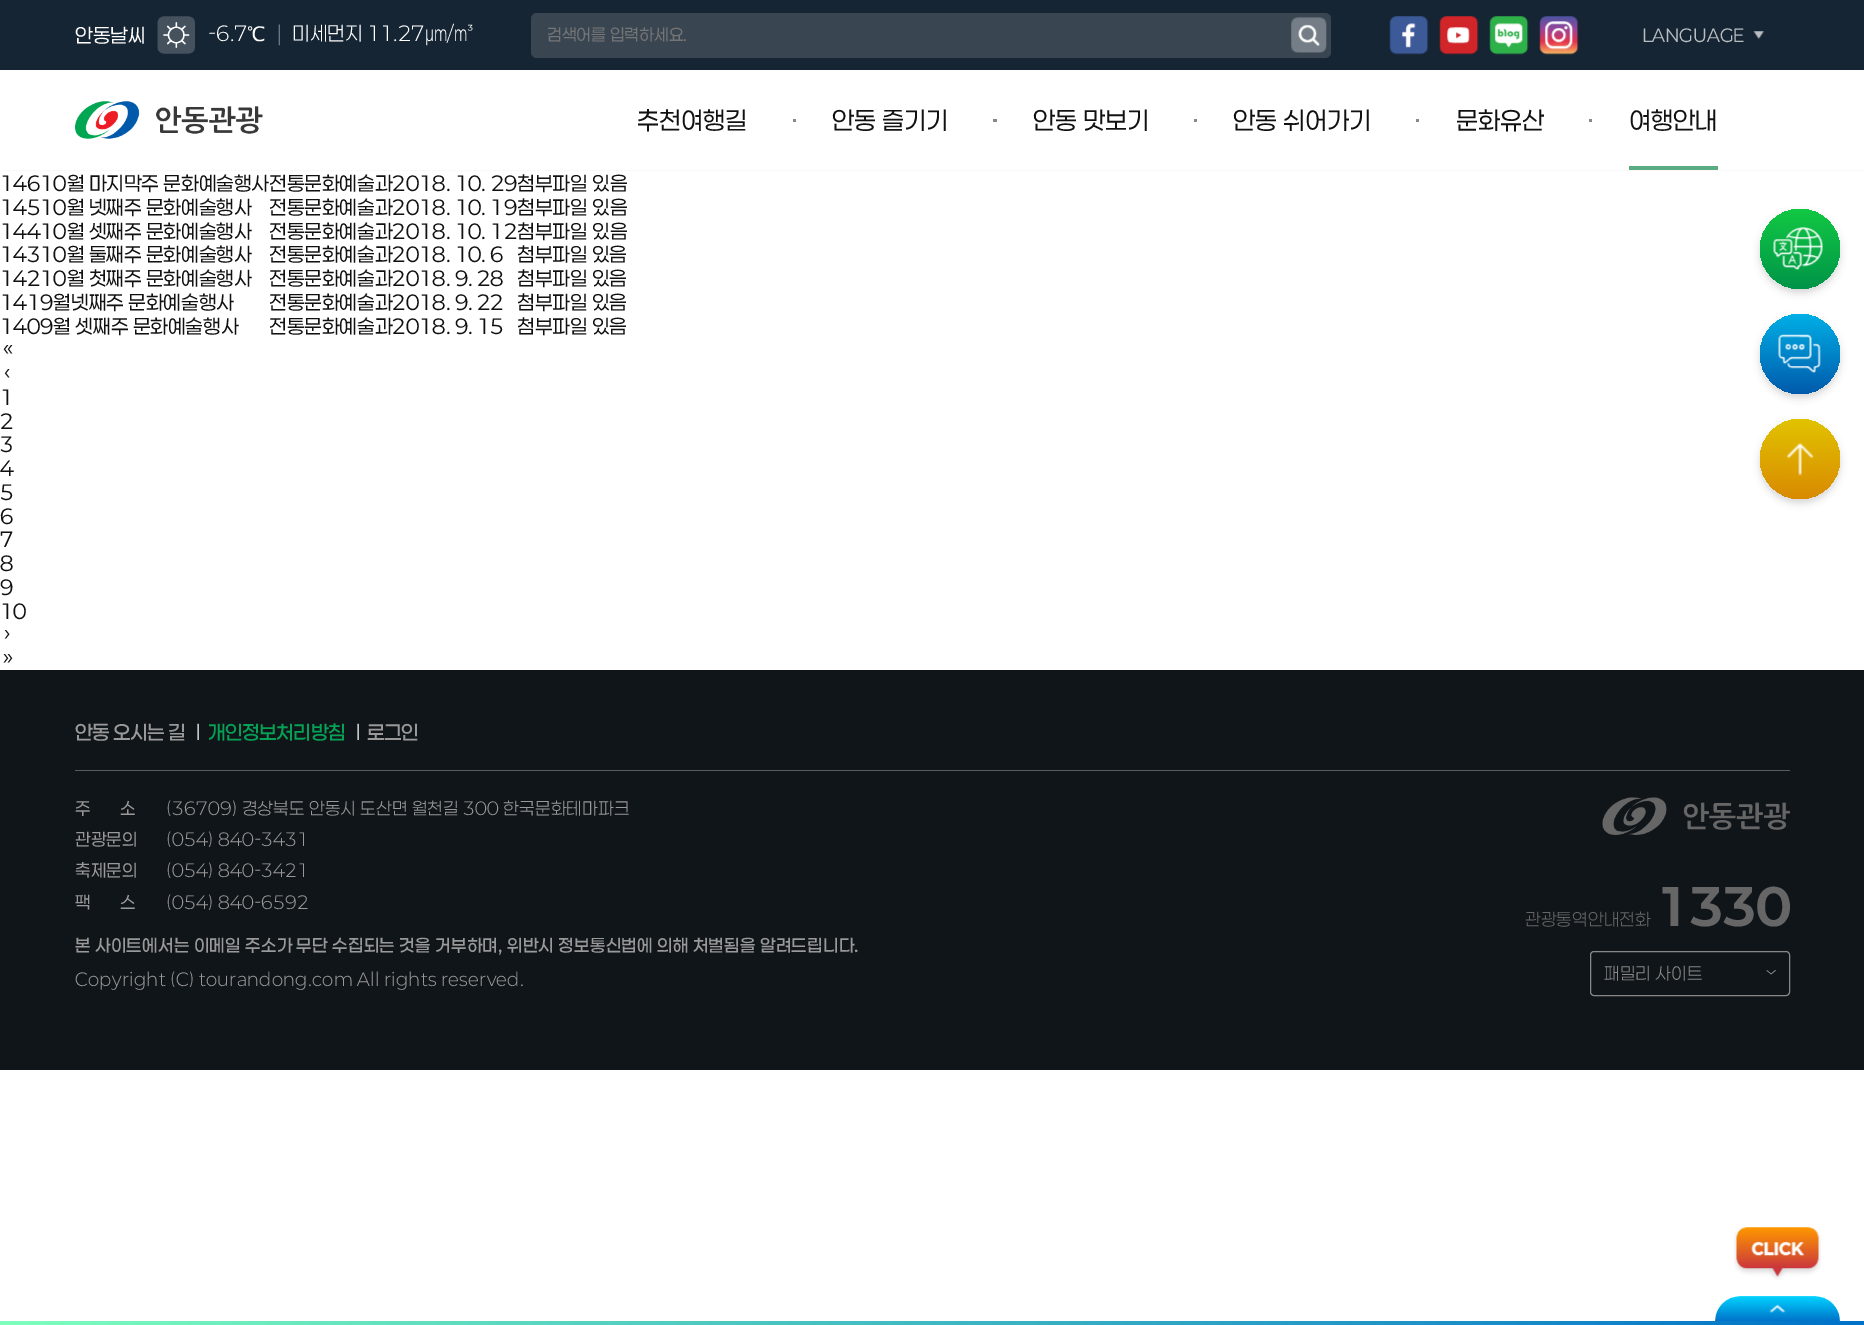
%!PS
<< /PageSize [1864 1325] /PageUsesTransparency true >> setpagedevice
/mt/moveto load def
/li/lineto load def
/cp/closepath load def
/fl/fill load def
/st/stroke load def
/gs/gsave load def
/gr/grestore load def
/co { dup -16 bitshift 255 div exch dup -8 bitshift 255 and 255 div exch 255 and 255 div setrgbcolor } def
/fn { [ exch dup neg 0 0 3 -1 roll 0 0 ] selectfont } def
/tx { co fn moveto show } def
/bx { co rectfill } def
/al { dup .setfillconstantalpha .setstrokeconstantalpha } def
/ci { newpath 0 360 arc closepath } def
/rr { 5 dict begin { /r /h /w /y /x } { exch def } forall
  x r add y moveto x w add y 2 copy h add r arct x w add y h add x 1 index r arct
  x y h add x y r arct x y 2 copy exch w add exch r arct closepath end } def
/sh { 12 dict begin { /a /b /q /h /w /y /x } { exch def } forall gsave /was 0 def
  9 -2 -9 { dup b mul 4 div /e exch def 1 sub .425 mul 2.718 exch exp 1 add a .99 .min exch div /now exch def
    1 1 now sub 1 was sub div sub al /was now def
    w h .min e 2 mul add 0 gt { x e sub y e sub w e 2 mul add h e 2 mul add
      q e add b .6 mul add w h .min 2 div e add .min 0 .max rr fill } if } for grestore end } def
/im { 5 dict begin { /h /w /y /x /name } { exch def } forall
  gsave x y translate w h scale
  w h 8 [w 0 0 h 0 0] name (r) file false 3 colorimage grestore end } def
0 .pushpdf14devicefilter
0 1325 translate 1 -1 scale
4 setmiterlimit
0 0 1864 1325 16#FFFFFF bx
0 0 1864 70 16#162534 bx
(media/1.raw) 157 16 38 38 im
16#394652 co
531 13 800 45 6 rr fl
(media/2.raw) 1291 17 36 36 im
(media/3.raw) 1389 16 40 39 im
(media/4.raw) 1439 16 40 39 im
(media/5.raw) 1489 16 40 39 im
(media/6.raw) 1539 16 40 39 im
(media/7.raw) 1753 31 12 9 im
0 170 1864 1 16#F9F9F9 bx
(media/8.raw) 75 101 188 38 im
793 119 3 3 16#888888 bx
993 119 4 3 16#888888 bx
1194 119 3 3 16#888888 bx
1416 119 3 3 16#888888 bx
1589 119 3 3 16#888888 bx
1629 166 89 4 16#5BAB82 bx
16#000000 co
1760 213 80 80 40 4 .16 sh
gs 1800 249 40 ci clip newpath
<< /ShadingType 2 /ColorSpace /DeviceRGB /Coords [1800 289 1800 209] /Extend [true true] /Function << /FunctionType 2 /Domain [0 1] /C0 [0 .58 .282] /C1 [.071 .784 .263] /N 1 >> >> shfill gr
(media/9.raw) 1773 227 50 43 im
1760 318 80 80 40 4 .16 sh
gs 1800 354 40 ci clip newpath
<< /ShadingType 2 /ColorSpace /DeviceRGB /Coords [1800 394 1800 314] /Extend [true true] /Function << /FunctionType 2 /Domain [0 1] /C0 [0 .353 .671] /C1 [0 .686 .902] /N 1 >> >> shfill gr
(media/10.raw) 1778 334 43 39 im
1760 423 80 80 40 4 .16 sh
gs 1800 459 40 ci clip newpath
<< /ShadingType 2 /ColorSpace /DeviceRGB /Coords [1800 499 1800 419] /Extend [true true] /Function << /FunctionType 2 /Domain [0 1] /C0 [.851 .541 0] /C1 [.882 .765 0] /N 1 >> >> shfill gr
(media/11.raw) 1786 443 28 33 im
0 670 1864 400 16#10151A bx
75 770 1715 1 16#585B5F bx
(media/12.raw) 197 723 2 17 im
(media/12.raw) 357 723 2 17 im
(media/13.raw) 1602 797 188 38 im
16#888888 co
1590.5 951.5 199 44 3.5 rr st
(media/14.raw) 1766 970 10 5 im
(media/15.raw) 1734 1227 87 53 im
(media/16.raw) 1715 1296 125 25 im
(media/17.raw) 1769 1304 17 9 im
gs 0 1321 mt 1864 1321 li 1864 1325 li 0 1325 li cp clip newpath
<< /ShadingType 2 /ColorSpace /DeviceRGB /Coords [0 1323 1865 1323] /Extend [true true] /Function << /FunctionType 2 /Domain [0 1] /C0 [.494 1 .741] /C1 [0 .447 .788] /N 1 >> >> shfill gr
(안동날씨) 75 43 /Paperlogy-Regular 20 16#FFFFFF tx
(-6.7) 208 41 /Paperlogy-Light 20 16#FFFFFF tx
(℃) 247 41 /WenQuanYiZenHei-Medium 20 16#FFFFFF tx
(|) 276 41 /Paperlogy-Light 20 16#8B929A tx
(미세먼지 11.27㎛/㎥) 292 41 /Paperlogy-Light 20 16#FFFFFF tx
(검색어를 입력하세요.) 547 41 /Paperlogy-Regular 16.75 16#757575 tx
(LANGUAGE) 1642 42 /Paperlogy-Regular 17.5 16#B9BEC2 tx
(추천여행길) 637 130 /Paperlogy-Regular 25 16#111111 tx
(안동 즐기기) 832 130 /Paperlogy-Regular 25 16#111111 tx
(안동 맛보기) 1033 130 /Paperlogy-Regular 25 16#111111 tx
(안동 쉬어가기) 1233 130 /Paperlogy-Regular 25 16#111111 tx
(문화유산) 1456 130 /Paperlogy-Regular 25 16#111111 tx
(여행안내) 1629 130 /Paperlogy-Regular 25 16#111111 tx
(14610월 마지막주 문화예술행사전통문화예술과2018. 10. 29첨부파일 있음) 0 191 /Paperlogy-Regular 20 16#111111 tx
(14510월 넷째주 문화예술행사) 0 215 /Paperlogy-Regular 20 16#111111 tx
(전통문화예술과2018. 10. 19첨부파일 있음) 269 215 /Paperlogy-Regular 20 16#111111 tx
(14410월 셋째주 문화예술행사) 0 239 /Paperlogy-Regular 20 16#111111 tx
(전통문화예술과2018. 10. 12첨부파일 있음) 269 239 /Paperlogy-Regular 20 16#111111 tx
(14310월 둘째주 문화예술행사) 0 262 /Paperlogy-Regular 20 16#111111 tx
(전통문화예술과2018. 10. 6) 269 262 /Paperlogy-Regular 20 16#111111 tx
(첨부파일 있음) 517 262 /Paperlogy-Regular 20 16#111111 tx
(14210월 첫째주 문화예술행사) 0 286 /Paperlogy-Regular 20 16#111111 tx
(전통문화예술과2018. 9. 28) 269 286 /Paperlogy-Regular 20 16#111111 tx
(첨부파일 있음) 517 286 /Paperlogy-Regular 20 16#111111 tx
(1419월넷째주 문화예술행사) 0 310 /Paperlogy-Regular 20 16#111111 tx
(전통문화예술과2018. 9. 22) 269 310 /Paperlogy-Regular 20 16#111111 tx
(첨부파일 있음) 517 310 /Paperlogy-Regular 20 16#111111 tx
(1409월 셋째주 문화예술행사) 0 334 /Paperlogy-Regular 20 16#111111 tx
(전통문화예술과2018. 9. 15) 269 334 /Paperlogy-Regular 20 16#111111 tx
(첨부파일 있음) 517 334 /Paperlogy-Regular 20 16#111111 tx
(«) 0 357 /Paperlogy-Regular 20 16#111111 tx
(‹) 0 381 /Paperlogy-Regular 20 16#111111 tx
(1) 0 405 /Paperlogy-Regular 20 16#111111 tx
(2) 0 429 /Paperlogy-Regular 20 16#111111 tx
(3) 0 452 /Paperlogy-Regular 20 16#111111 tx
(4) 0 476 /Paperlogy-Regular 20 16#111111 tx
(5) 0 500 /Paperlogy-Regular 20 16#111111 tx
(6) 0 524 /Paperlogy-Regular 20 16#111111 tx
(7) 0 547 /Paperlogy-Regular 20 16#111111 tx
(8) 0 571 /Paperlogy-Regular 20 16#111111 tx
(9) 0 595 /Paperlogy-Regular 20 16#111111 tx
(10) 0 619 /Paperlogy-Regular 20 16#111111 tx
(›) 0 642 /Paperlogy-Regular 20 16#111111 tx
(») 0 666 /Paperlogy-Regular 20 16#111111 tx
/Paperlogy-Medium 20 fn
16#999999 co
75 740 mt -.5 0 (안동 오시는 길) ashow
16#06A154 co
208 740 mt -.5 0 (개인정보처리방침) ashow
16#999999 co
367 740 mt -.5 0 (로그인) ashow
/Paperlogy-Regular 17.5 fn
75 815 mt 30 0 (주) ashow
120 815 mt .35 0 (소) ashow
/Paperlogy-Light 17.5 fn
166 815 mt .35 0 (\(36709\) 경상북도 안동시 도산면 월천길 300 한국문화테마파크) ashow
/Paperlogy-Regular 17.5 fn
75 846 mt .35 0 (관광문의) ashow
/Paperlogy-Light 17.5 fn
166 846 mt .35 0 (\(054\) 840-3431) ashow
/Paperlogy-Regular 17.5 fn
75 877 mt .35 0 (축제문의) ashow
/Paperlogy-Light 17.5 fn
166 877 mt .35 0 (\(054\) 840-3421) ashow
/Paperlogy-Regular 17.5 fn
75 909 mt 30 0 (팩) ashow
120 909 mt .35 0 (스) ashow
/Paperlogy-Light 17.5 fn
166 909 mt .35 0 (\(054\) 840-6592) ashow
/Paperlogy-Medium 17.5 fn
75 952 mt .35 0 (본 사이트에서는 이메일 주소가 무단 수집되는 것을 거부하며, 위반시 정보통신법에 의해 처벌됨을 알려드립니다.) ashow
/Paperlogy-Light 17.5 fn
75 986 mt .35 0 (Copyright \(C\) tourandong.com All rights reserved.) ashow
16#666666 co
1525 926 mt .35 0 (관광통역안내전화) ashow
/Paperlogy-Bold 50 fn
1656 926 mt .35 0 (1330) ashow
/Paperlogy-Light 17.5 fn
16#888888 co
1604 980 mt .35 0 (패밀리 사이트) ashow
.poppdf14devicefilter showpage
